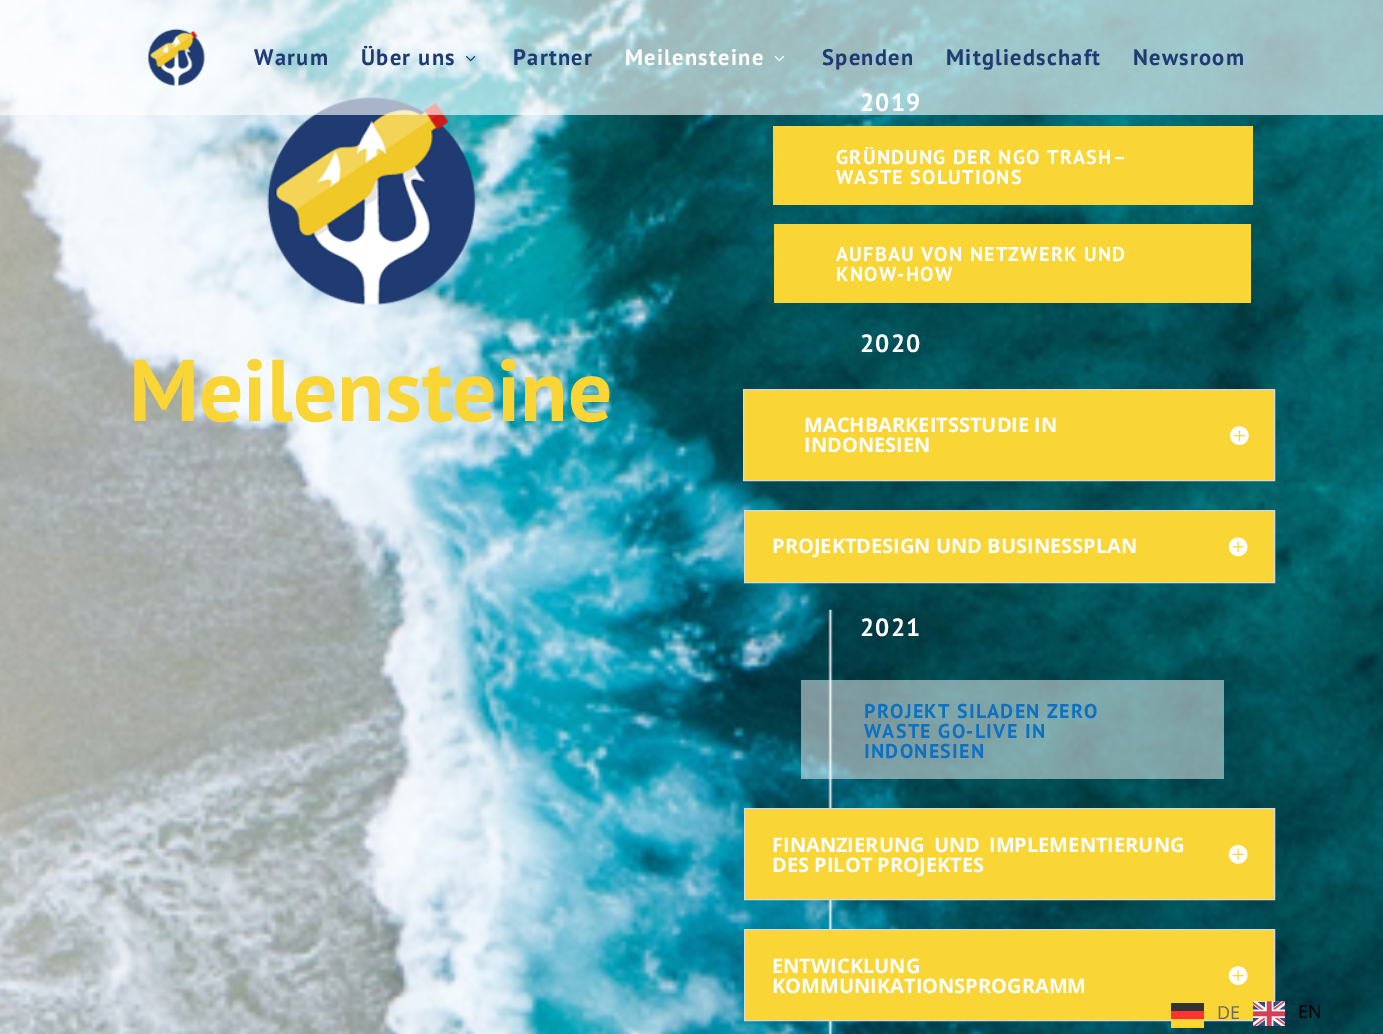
%!PS
<< /PageSize [1383 1034] /PageUsesTransparency true >> setpagedevice
/mt/moveto load def
/li/lineto load def
/cp/closepath load def
/fl/fill load def
/st/stroke load def
/gs/gsave load def
/gr/grestore load def
/co { dup -16 bitshift 255 div exch dup -8 bitshift 255 and 255 div exch 255 and 255 div setrgbcolor } def
/fn { [ exch dup neg 0 0 3 -1 roll 0 0 ] selectfont } def
/tx { co fn moveto show } def
/bx { co rectfill } def
/al { dup .setfillconstantalpha .setstrokeconstantalpha } def
/im { 5 dict begin { /h /w /y /x /name } { exch def } forall
  gsave x y translate w h scale
  w h 8 [w 0 0 h 0 0] name (r) file false 3 colorimage grestore end } def
0 .pushpdf14devicefilter
0 1034 translate 1 -1 scale
4 setmiterlimit
0 0 1383 1034 16#FFFFFF bx
(media/4.raw) 0 0 1383 1034 im
(media/5.raw) 267 97 209 208 im
(media/6.raw) 828 609 5 425 im
773 126 480 79 16#F9D536 bx
774 224 477 79 16#F9D536 bx
743.5 389.5 mt 1274.5 389.5 li 1274.5 480.5 li 743.5 480.5 li cp gs fl gr
16#D9D9D9 co
st
(media/7.raw) 1230 426 19 19 im
16#F9D536 co
744.5 510.5 mt 1274.5 510.5 li 1274.5 582.5 li 744.5 582.5 li cp gs fl gr
16#D9D9D9 co
st
(media/8.raw) 1228 537 20 20 im
0.49 al
801 680 423 99 16#FFFFFF bx
1 al
16#F9D536 co
744.5 808.5 mt 1274.5 808.5 li 1274.5 899.5 li 744.5 899.5 li cp gs fl gr
16#D9D9D9 co
st
(media/9.raw) 1228 845 20 19 im
16#F9D536 co
744.5 929.5 mt 1274.5 929.5 li 1274.5 1020.5 li 744.5 1020.5 li cp gs fl gr
16#D9D9D9 co
st
(media/10.raw) 1228 966 20 19 im
1171 1019 33 9 16#FFCC00 bx
1171 1003 33 8 16#000001 bx
1171 1011 33 8 16#FF0000 bx
0.2 al
1171 1003 33 24 16#FFFFFF bx
1 al
(media/11.raw) 1253 1001 32 25 im
(Meilensteine) 129 421 /PTSans-Bold 87.5 16#F9D536 tx
/PTSans-Bold 25 fn
16#FFFFFF co
860 111 mt 1.25 0 (2019) ashow
0.62 al
0 0 1383 115 16#FFFFFF bx
/PTSans-Bold 22.5 fn
1 al
16#1F3B72 co
1133 65 mt 1.25 0 (Newsroom) ashow
946 65 mt 1.25 0 (Mitgliedschaft) ashow
822 65 mt 1.25 0 (Spenden) ashow
(media/3.raw) 774 56 10 6 im
16#FFFFFF co
625 65 mt 1.25 0 (Meilensteine) ashow
16#1F3B72 co
513 65 mt 1.25 0 (Partner) ashow
(media/2.raw) 466 56 10 6 im
361 65 mt 1.25 0 (Über uns) ashow
254 65 mt 1.25 0 (Warum) ashow
(media/1.raw) 147 28 58 58 im
/PTSans-Bold 20 fn
16#FFFFFF co
836 164 mt 1.25 0 (GRÜNDUNG DER NGO TRASH–) ashow
836 184 mt 1.25 0 (WASTE SOLUTIONS) ashow
836 261 mt 1.25 0 (AUFBAU VON NETZWERK UND) ashow
836 281 mt 1.25 0 (KNOW-HOW) ashow
/PTSans-Bold 25 fn
860 352 mt 1.25 0 (2020) ashow
(MACHBARKEITSSTUDIE IN) 804 432 /OpenSans-Bold 20 16#FFFFFF tx
(INDONESIEN) 804 452 /OpenSans-Bold 20 16#FFFFFF tx
(PROJEKTDESIGN UND BUSINESSPLAN) 772 553 /OpenSans-Bold 20 16#FFFFFF tx
/PTSans-Bold 25 fn
860 636 mt 1.25 0 (2021) ashow
/PTSans-Bold 20 fn
16#0C71C3 co
864 718 mt 1.25 0 (PROJEKT SILADEN ZERO) ashow
864 738 mt 1.25 0 (WASTE GO-LIVE IN) ashow
864 758 mt 1.25 0 (INDONESIEN) ashow
/OpenSans-Bold 20 fn
16#FFFFFF co
772 852 mt 4 0 32 (FINANZIERUNG UND IMPLEMENTIERUNG) widthshow
(DES PILOT PROJEKTES) 772 872 /OpenSans-Bold 20 16#FFFFFF tx
(ENTWICKLUNG) 772 973 /OpenSans-Bold 20 16#FFFFFF tx
(KOMMUNIKATIONSPROGRAMM) 772 993 /OpenSans-Bold 20 16#FFFFFF tx
(DE) 1217 1019 /OpenSans-Regular 18 16#666666 tx
(EN) 1298 1018 /OpenSans-Regular 18 16#000000 tx
.poppdf14devicefilter showpage
